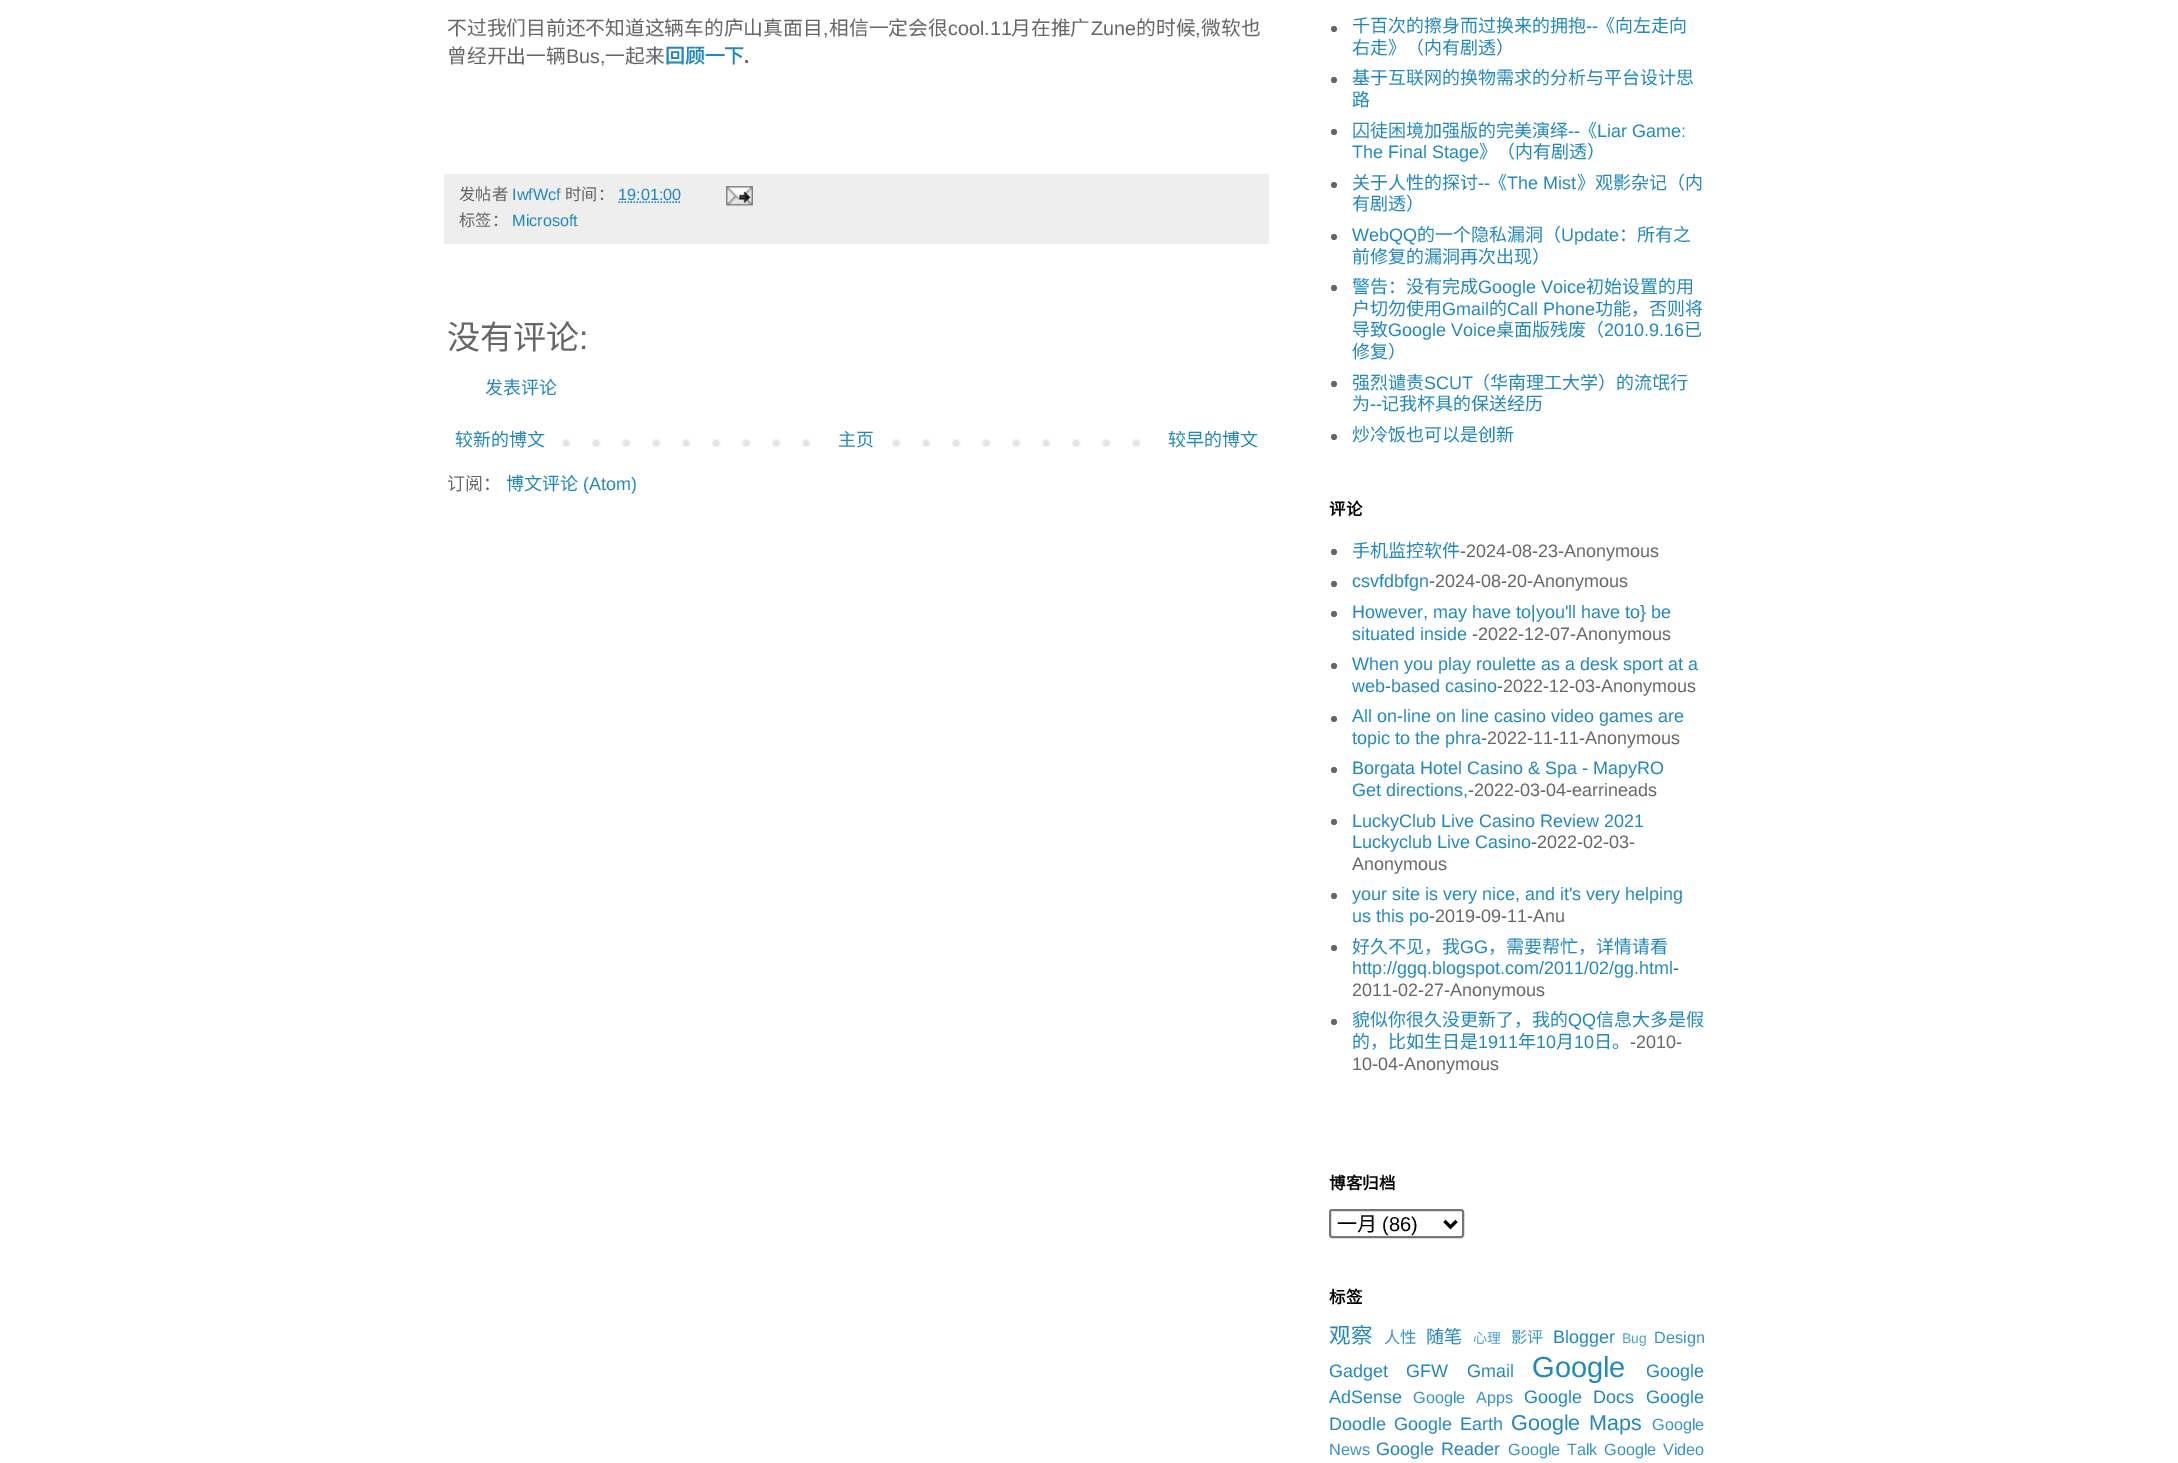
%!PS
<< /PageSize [2178 1463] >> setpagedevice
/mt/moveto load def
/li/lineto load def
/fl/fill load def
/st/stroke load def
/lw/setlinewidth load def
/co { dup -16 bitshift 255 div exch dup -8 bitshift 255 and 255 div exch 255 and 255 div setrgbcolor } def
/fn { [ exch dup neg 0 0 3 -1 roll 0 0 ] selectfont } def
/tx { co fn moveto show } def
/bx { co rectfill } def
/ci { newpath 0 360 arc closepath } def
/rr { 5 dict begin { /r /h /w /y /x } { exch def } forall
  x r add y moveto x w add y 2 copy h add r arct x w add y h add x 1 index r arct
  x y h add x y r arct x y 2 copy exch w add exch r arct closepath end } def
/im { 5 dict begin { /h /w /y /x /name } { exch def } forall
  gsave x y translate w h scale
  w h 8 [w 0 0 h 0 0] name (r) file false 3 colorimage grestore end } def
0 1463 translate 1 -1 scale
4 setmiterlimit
0 0 2178 1463 16#FFFFFF bx
444 174 825 70 16#EEEEEE bx
16#2288BB co
1.5 lw
[1.5 1.5] 0 setdash
618.5 202 mt 681.5 202 li st
(media/1.raw) 726 186 27 20 im
(media/2.raw) 562 439 579 8 im
832 439 39 8 16#FFFFFF bx
16#666666 co
1334 29 3 ci fl
1334 80 3 ci fl
1334 132 3 ci fl
1334 185 3 ci fl
1334 237 3 ci fl
1334 288 3 ci fl
1334 384 3 ci fl
1334 437 3 ci fl
1334 552 3 ci fl
1334 584 3 ci fl
1334 614 3 ci fl
1334 666 3 ci fl
1334 719 3 ci fl
1334 770 3 ci fl
1334 822 3 ci fl
1334 896 3 ci fl
1334 948 3 ci fl
1334 1022 3 ci fl
16#767676 co
2 lw
[] 0 setdash
1330 1210 133 27 2 rr st
16#000000 co
3 lw
1444.5 1221 mt 1450.5 1227 li 1456.5 1221 li st
(不过我们目前还不知道这辆车的庐山真面目) 447 35 /NotoSansCJKSC-Regular 19.75 16#666666 tx
(,) 823 35 /LiberationSans-Regular 19.75 16#666666 tx
(相信一定会很) 829 35 /NotoSansCJKSC-Regular 19.75 16#666666 tx
(cool.11) 948 35 /LiberationSans-Regular 19.75 16#666666 tx
(月在推广) 1011 35 /NotoSansCJKSC-Regular 19.75 16#666666 tx
(Zune) 1091 35 /LiberationSans-Regular 19.75 16#666666 tx
(的时候) 1136 35 /NotoSansCJKSC-Regular 19.75 16#666666 tx
(,) 1195 35 /LiberationSans-Regular 19.75 16#666666 tx
(微软也) 1201 35 /NotoSansCJKSC-Regular 19.75 16#666666 tx
(曾经开出一辆) 447 63 /NotoSansCJKSC-Regular 19.75 16#666666 tx
(Bus,) 566 63 /LiberationSans-Regular 19.75 16#666666 tx
(一起来) 605 63 /NotoSansCJKSC-Regular 19.75 16#666666 tx
(回顾一下) 665 63 /NotoSansCJKSC-Bold 19.75 16#2288BB tx
(.) 744 63 /LiberationSans-Bold 19.75 16#666666 tx
(发帖者) 459 200 /NotoSansCJKSC-Regular 16.25 16#666666 tx
(IwfWcf) 512 200 /LiberationSans-Regular 16.25 16#2288BB tx
(时间：) 565 200 /NotoSansCJKSC-Regular 16.25 16#666666 tx
(19:01:00) 618 200 /LiberationSans-Regular 16.25 16#2288BB tx
(标签：) 459 226 /NotoSansCJKSC-Regular 16.25 16#666666 tx
(Microsoft) 512 226 /LiberationSans-Regular 16.25 16#2288BB tx
(没有评论) 447 349 /NotoSansCJKSC-Regular 33 16#666666 tx
(:) 579 349 /LiberationSans-Regular 33 16#666666 tx
(发表评论) 485 394 /NotoSansCJKSC-Regular 18 16#2288BB tx
(较新的博文) 455 446 /NotoSansCJKSC-Regular 18 16#2288BB tx
(主页) 838 446 /NotoSansCJKSC-Regular 18 16#2288BB tx
(较早的博文) 1168 446 /NotoSansCJKSC-Regular 18 16#2288BB tx
(订阅：) 447 490 /NotoSansCJKSC-Regular 18 16#666666 tx
(博文评论) 506 490 /NotoSansCJKSC-Regular 18 16#2288BB tx
(\(Atom\)) 583 490 /LiberationSans-Regular 18 16#2288BB tx
(千百次的擦身而过换来的拥抱) 1352 32 /NotoSansCJKSC-Regular 18 16#2288BB tx
(--) 1586 32 /LiberationSans-Regular 18 16#2288BB tx
(《向左走向) 1597 32 /NotoSansCJKSC-Regular 18 16#2288BB tx
(右走》（内有剧透）) 1352 54 /NotoSansCJKSC-Regular 18 16#2288BB tx
(基于互联网的换物需求的分析与平台设计思) 1352 84 /NotoSansCJKSC-Regular 18 16#2288BB tx
(路) 1352 106 /NotoSansCJKSC-Regular 18 16#2288BB tx
(囚徒困境加强版的完美演绎) 1352 137 /NotoSansCJKSC-Regular 18 16#2288BB tx
(--) 1568 137 /LiberationSans-Regular 18 16#2288BB tx
(《) 1579 137 /NotoSansCJKSC-Regular 18 16#2288BB tx
(Liar Game:) 1597 137 /LiberationSans-Regular 18 16#2288BB tx
(The Final Stage) 1352 158 /LiberationSans-Regular 18 16#2288BB tx
(》（内有剧透）) 1479 158 /NotoSansCJKSC-Regular 18 16#2288BB tx
(关于人性的探讨) 1352 189 /NotoSansCJKSC-Regular 18 16#2288BB tx
(--) 1478 189 /LiberationSans-Regular 18 16#2288BB tx
(《) 1489 189 /NotoSansCJKSC-Regular 18 16#2288BB tx
(The Mist) 1507 189 /LiberationSans-Regular 18 16#2288BB tx
(》观影杂记（内) 1577 189 /NotoSansCJKSC-Regular 18 16#2288BB tx
(有剧透）) 1352 210 /NotoSansCJKSC-Regular 18 16#2288BB tx
(WebQQ) 1352 241 /LiberationSans-Regular 18 16#2288BB tx
(的一个隐私漏洞（) 1417 241 /NotoSansCJKSC-Regular 18 16#2288BB tx
(Update) 1561 241 /LiberationSans-Regular 18 16#2288BB tx
(：所有之) 1619 241 /NotoSansCJKSC-Regular 18 16#2288BB tx
(前修复的漏洞再次出现）) 1352 263 /NotoSansCJKSC-Regular 18 16#2288BB tx
(警告：没有完成) 1352 293 /NotoSansCJKSC-Regular 18 16#2288BB tx
(Google Voice) 1478 293 /LiberationSans-Regular 18 16#2288BB tx
(初始设置的用) 1586 293 /NotoSansCJKSC-Regular 18 16#2288BB tx
(户切勿使用) 1352 315 /NotoSansCJKSC-Regular 18 16#2288BB tx
(Gmail) 1442 315 /LiberationSans-Regular 18 16#2288BB tx
(的) 1489 315 /NotoSansCJKSC-Regular 18 16#2288BB tx
(Call Phone) 1507 315 /LiberationSans-Regular 18 16#2288BB tx
(功能，否则将) 1595 315 /NotoSansCJKSC-Regular 18 16#2288BB tx
(导致) 1352 336 /NotoSansCJKSC-Regular 18 16#2288BB tx
(Google Voice) 1388 336 /LiberationSans-Regular 18 16#2288BB tx
(桌面版残废（) 1496 336 /NotoSansCJKSC-Regular 18 16#2288BB tx
(2010.9.16) 1604 336 /LiberationSans-Regular 18 16#2288BB tx
(已) 1684 336 /NotoSansCJKSC-Regular 18 16#2288BB tx
(修复）) 1352 358 /NotoSansCJKSC-Regular 18 16#2288BB tx
(强烈谴责) 1352 389 /NotoSansCJKSC-Regular 18 16#2288BB tx
(SCUT) 1424 389 /LiberationSans-Regular 18 16#2288BB tx
(（华南理工大学）的流氓行) 1472 389 /NotoSansCJKSC-Regular 18 16#2288BB tx
(为) 1352 410 /NotoSansCJKSC-Regular 18 16#2288BB tx
(--) 1370 410 /LiberationSans-Regular 18 16#2288BB tx
(记我杯具的保送经历) 1381 410 /NotoSansCJKSC-Regular 18 16#2288BB tx
(炒冷饭也可以是创新) 1352 441 /NotoSansCJKSC-Regular 18 16#2288BB tx
(评论) 1329 515 /NotoSansCJKSC-Bold 16.5 16#000000 tx
(手机监控软件) 1352 557 /NotoSansCJKSC-Regular 18 16#2288BB tx
(-2024-08-23-Anonymous) 1460 557 /LiberationSans-Regular 18 16#666666 tx
(csvfdbfgn) 1352 587 /LiberationSans-Regular 18 16#2288BB tx
(-2024-08-20-Anonymous) 1429 587 /LiberationSans-Regular 18 16#666666 tx
(However, may have to|you'll have to} be) 1352 618 /LiberationSans-Regular 18 16#2288BB tx
(situated inside) 1352 640 /LiberationSans-Regular 18 16#2288BB tx
(-2022-12-07-Anonymous) 1472 640 /LiberationSans-Regular 18 16#666666 tx
(When you play roulette as a desk sport at a) 1352 670 /LiberationSans-Regular 18 16#2288BB tx
(web-based casino) 1352 692 /LiberationSans-Regular 18 16#2288BB tx
(-2022-12-03-Anonymous) 1497 692 /LiberationSans-Regular 18 16#666666 tx
(All on-line on line casino video games are) 1352 722 /LiberationSans-Regular 18 16#2288BB tx
(topic to the phra) 1352 744 /LiberationSans-Regular 18 16#2288BB tx
(-2022-11-11-Anonymous) 1481 744 /LiberationSans-Regular 18 16#666666 tx
(Borgata Hotel Casino & Spa - MapyRO) 1352 774 /LiberationSans-Regular 18 16#2288BB tx
(Get directions,) 1352 796 /LiberationSans-Regular 18 16#2288BB tx
(-2022-03-04-earrineads) 1468 796 /LiberationSans-Regular 18 16#666666 tx
(LuckyClub Live Casino Review 2021) 1352 827 /LiberationSans-Regular 18 16#2288BB tx
(Luckyclub Live Casino) 1352 848 /LiberationSans-Regular 18 16#2288BB tx
(-2022-02-03-) 1531 848 /LiberationSans-Regular 18 16#666666 tx
(Anonymous) 1352 870 /LiberationSans-Regular 18 16#666666 tx
(your site is very nice, and it's very helping) 1352 900 /LiberationSans-Regular 18 16#2288BB tx
(us this po) 1352 922 /LiberationSans-Regular 18 16#2288BB tx
(-2019-09-11-Anu) 1429 922 /LiberationSans-Regular 18 16#666666 tx
(好久不见，我) 1352 953 /NotoSansCJKSC-Regular 18 16#2288BB tx
(GG) 1460 953 /LiberationSans-Regular 18 16#2288BB tx
(，需要帮忙，详情请看) 1488 953 /NotoSansCJKSC-Regular 18 16#2288BB tx
(http://ggq.blogspot.com/2011/02/gg.html) 1352 974 /LiberationSans-Regular 18 16#2288BB tx
(-) 1673 974 /LiberationSans-Regular 18 16#666666 tx
(2011-02-27-Anonymous) 1352 996 /LiberationSans-Regular 18 16#666666 tx
(貌似你很久没更新了，我的) 1352 1026 /NotoSansCJKSC-Regular 18 16#2288BB tx
(QQ) 1568 1026 /LiberationSans-Regular 18 16#2288BB tx
(信息大多是假) 1596 1026 /NotoSansCJKSC-Regular 18 16#2288BB tx
(的，比如生日是) 1352 1048 /NotoSansCJKSC-Regular 18 16#2288BB tx
(1911) 1478 1048 /LiberationSans-Regular 18 16#2288BB tx
(年) 1518 1048 /NotoSansCJKSC-Regular 18 16#2288BB tx
(10) 1536 1048 /LiberationSans-Regular 18 16#2288BB tx
(月) 1556 1048 /NotoSansCJKSC-Regular 18 16#2288BB tx
(10) 1574 1048 /LiberationSans-Regular 18 16#2288BB tx
(日。) 1594 1048 /NotoSansCJKSC-Regular 18 16#2288BB tx
(-2010-) 1630 1048 /LiberationSans-Regular 18 16#666666 tx
(10-04-Anonymous) 1352 1070 /LiberationSans-Regular 18 16#666666 tx
(博客归档) 1329 1189 /NotoSansCJKSC-Bold 16.5 16#000000 tx
(一月) 1337 1231 /NotoSansCJKSC-Regular 20 16#000000 tx
(\(86\)) 1382 1231 /LiberationSans-Regular 20 16#000000 tx
(标签) 1329 1303 /NotoSansCJKSC-Bold 16.5 16#000000 tx
(观察) 1329 1343 /NotoSansCJKSC-Regular 21.5 16#2288BB tx
(人性) 1384 1343 /NotoSansCJKSC-Regular 16.25 16#3894C2 tx
(随笔) 1426 1343 /NotoSansCJKSC-Regular 18 16#2288BB tx
(心理) 1473 1343 /NotoSansCJKSC-Regular 14 16#4EA0C9 tx
(影评) 1511 1343 /NotoSansCJKSC-Regular 16.25 16#3894C2 tx
(Blogger) 1553 1343 /LiberationSans-Regular 18 16#2288BB tx
(Bug) 1622 1343 /LiberationSans-Regular 14 16#4EA0C9 tx
(Design) 1654 1343 /LiberationSans-Regular 16.25 16#3894C2 tx
(Gadget) 1329 1377 /LiberationSans-Regular 18 16#2288BB tx
(GFW) 1406 1377 /LiberationSans-Regular 18 16#2288BB tx
(Gmail) 1467 1377 /LiberationSans-Regular 18 16#2288BB tx
(Google) 1532 1377 /LiberationSans-Regular 29 16#2288BB tx
(Google) 1646 1377 /LiberationSans-Regular 18 16#2288BB tx
(AdSense) 1329 1403 /LiberationSans-Regular 18 16#2288BB tx
/LiberationSans-Regular 16.25 fn
16#3894C2 co
1413 1403 mt 6 0 32 (Google Apps) widthshow
/LiberationSans-Regular 18 fn
16#2288BB co
1524 1403 mt 6 0 32 (Google Docs) widthshow
(Google) 1646 1403 /LiberationSans-Regular 18 16#2288BB tx
(Doodle) 1329 1430 /LiberationSans-Regular 18 16#2288BB tx
1394 1430 mt 3 0 32 (Google Earth) widthshow
/LiberationSans-Regular 21.5 fn
1511 1430 mt 3 0 32 (Google Maps) widthshow
(Google) 1652 1430 /LiberationSans-Regular 16.25 16#3894C2 tx
(News) 1329 1455 /LiberationSans-Regular 16.25 16#3894C2 tx
/LiberationSans-Regular 18 fn
16#2288BB co
1376 1455 mt 2 0 32 (Google Reader) widthshow
/LiberationSans-Regular 16.25 fn
16#3894C2 co
1508 1455 mt 2 0 32 (Google Talk) widthshow
1604 1455 mt 2 0 32 (Google Video) widthshow
showpage
